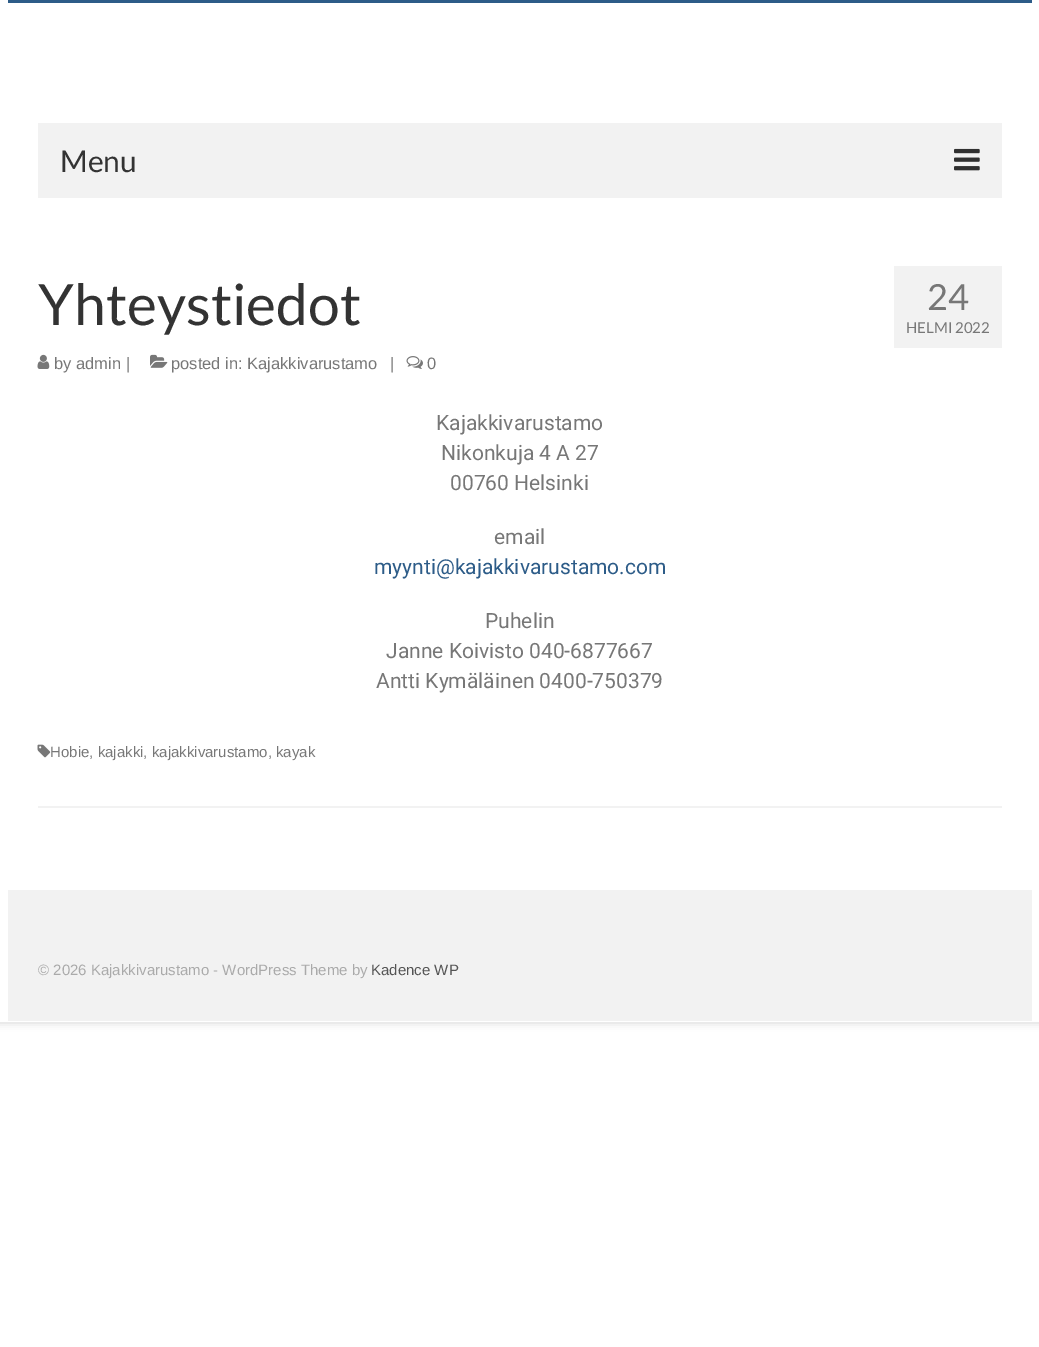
%!PS
<< /PageSize [1039 1347] /PageUsesTransparency true >> setpagedevice
/mt/moveto load def
/li/lineto load def
/cp/closepath load def
/gs/gsave load def
/gr/grestore load def
/co { dup -16 bitshift 255 div exch dup -8 bitshift 255 and 255 div exch 255 and 255 div setrgbcolor } def
/fn { [ exch dup neg 0 0 3 -1 roll 0 0 ] selectfont } def
/tx { co fn moveto show } def
/bx { co rectfill } def
/al { dup .setfillconstantalpha .setstrokeconstantalpha } def
/rr { 5 dict begin { /r /h /w /y /x } { exch def } forall
  x r add y moveto x w add y 2 copy h add r arct x w add y h add x 1 index r arct
  x y h add x y r arct x y 2 copy exch w add exch r arct closepath end } def
/sh { 12 dict begin { /a /b /q /h /w /y /x } { exch def } forall gsave /was 0 def
  9 -2 -9 { dup b mul 4 div /e exch def 1 sub .425 mul 2.718 exch exp 1 add a .99 .min exch div /now exch def
    1 1 now sub 1 was sub div sub al /was now def
    w h .min e 2 mul add 0 gt { x e sub y e sub w e 2 mul add h e 2 mul add
      q e add b .6 mul add w h .min 2 div e add .min 0 .max rr fill } if } for grestore end } def
/im { 5 dict begin { /h /w /y /x /name } { exch def } forall
  gsave x y translate w h scale
  w h 8 [w 0 0 h 0 0] name (r) file false 3 colorimage grestore end } def
0 .pushpdf14devicefilter
0 1347 translate 1 -1 scale
4 setmiterlimit
0 0 1039 1347 16#FFFFFF bx
gs
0 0 mt 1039 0 li 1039 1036 li 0 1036 li cp 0 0 mt 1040 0 li 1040 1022 li 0 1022 li cp eoclip newpath
16#000000 co
-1 -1 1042 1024 0 4 .16 sh
gr
8 0 1024 3 16#2D5C88 bx
38 123 964 75 16#F2F2F2 bx
(media/1.raw) 954 148 26 23 im
(media/2.raw) 37 354 13 15 im
(media/3.raw) 150 354 18 14 im
(media/4.raw) 406 356 17 13 im
894 266 108 82 16#F2F2F2 bx
38 806 964 2 16#F2F2F2 bx
(media/5.raw) 37 744 14 14 im
8 890 1024 131 16#F2F2F2 bx
(Menu) 60 172 /Lato-Regular 30 16#333333 tx
(Yhteystiedot) 38 325 /Lato-Regular 57 16#333333 tx
(by admin |) 54 369 /LiberationSans-Regular 16.5 16#777777 tx
(posted in: Kajakkivarustamo) 171 369 /LiberationSans-Regular 16.5 16#777777 tx
(|) 390 369 /LiberationSans-Regular 16.5 16#777777 tx
(0) 427 369 /LiberationSans-Regular 16.5 16#777777 tx
(24) 927 310 /Lato-Regular 36 16#777777 tx
(HELMI 2022) 906 333 /Lato-Regular 15 16#777777 tx
(Kajakkivarustamo) 436 430 /Roboto-Regular 21 16#777777 tx
(Nikonkuja 4 A 27) 441 460 /Roboto-Regular 21 16#777777 tx
(00760 Helsinki) 450 490 /Roboto-Regular 21 16#777777 tx
(email) 494 544 /Roboto-Regular 21 16#777777 tx
(myynti@kajakkivarustamo.com) 374 574 /Roboto-Regular 21 16#2D5C88 tx
(Puhelin) 485 628 /Roboto-Regular 21 16#777777 tx
(Janne Koivisto 040-6877667) 386 658 /Roboto-Regular 21 16#777777 tx
(Antti Kymäläinen 0400-750379) 376 688 /Roboto-Regular 21 16#777777 tx
(Hobie, kajakki, kajakkivarustamo, kayak) 50 757 /LiberationSans-Regular 15 16#777777 tx
(© 2026 Kajakkivarustamo - WordPress Theme by) 38 975 /LiberationSans-Regular 15 16#AAAAAA tx
(Kadence WP) 371 975 /LiberationSans-Regular 15 16#555555 tx
.poppdf14devicefilter showpage
